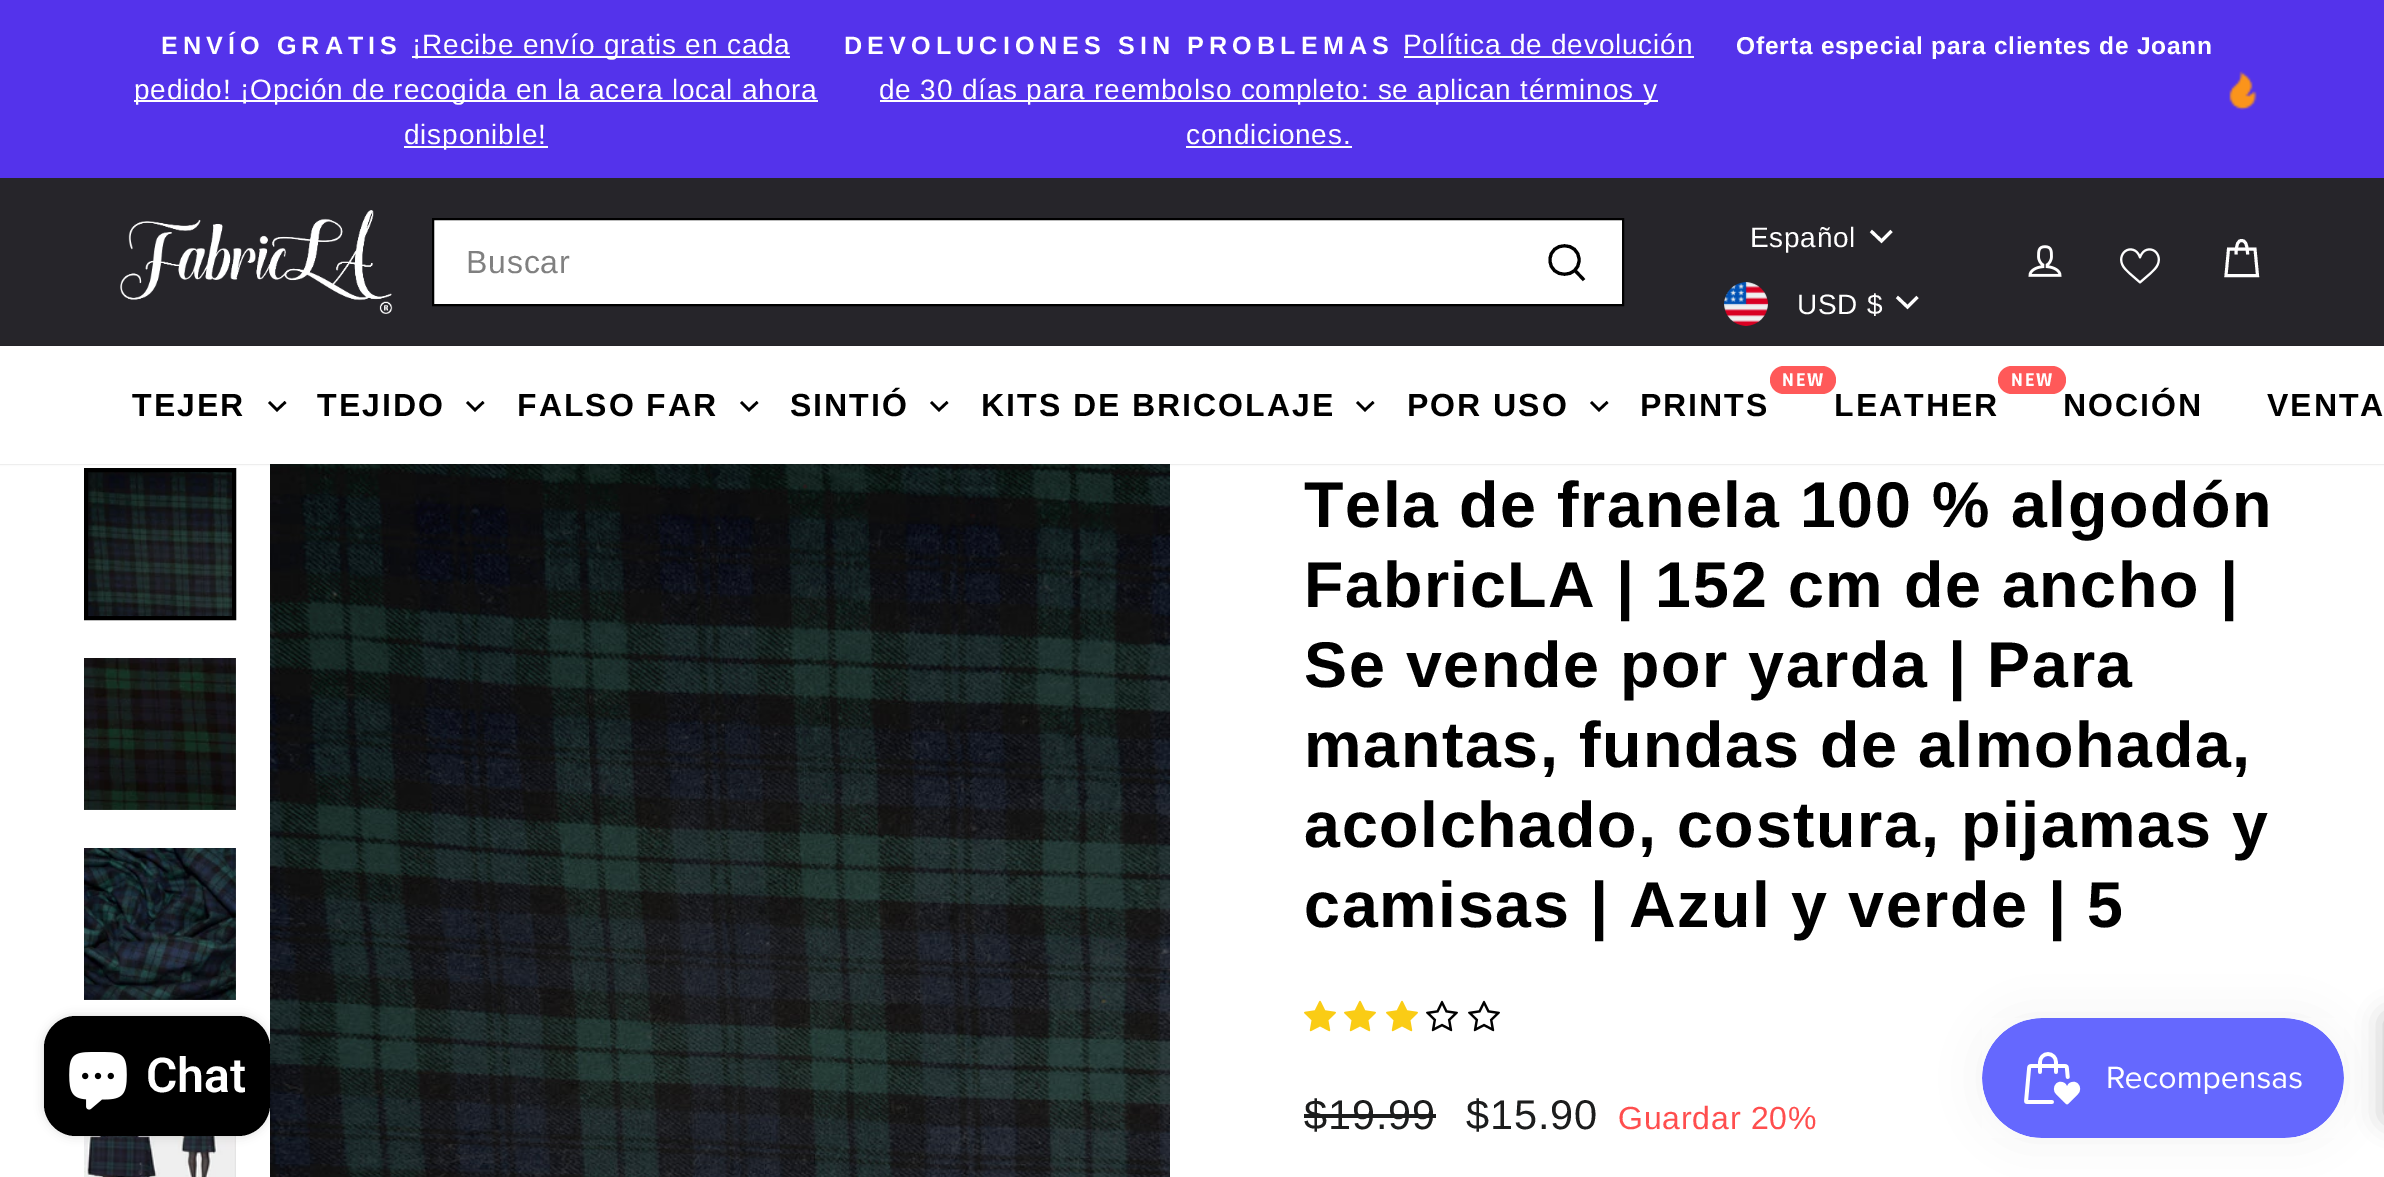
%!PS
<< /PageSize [2384 1177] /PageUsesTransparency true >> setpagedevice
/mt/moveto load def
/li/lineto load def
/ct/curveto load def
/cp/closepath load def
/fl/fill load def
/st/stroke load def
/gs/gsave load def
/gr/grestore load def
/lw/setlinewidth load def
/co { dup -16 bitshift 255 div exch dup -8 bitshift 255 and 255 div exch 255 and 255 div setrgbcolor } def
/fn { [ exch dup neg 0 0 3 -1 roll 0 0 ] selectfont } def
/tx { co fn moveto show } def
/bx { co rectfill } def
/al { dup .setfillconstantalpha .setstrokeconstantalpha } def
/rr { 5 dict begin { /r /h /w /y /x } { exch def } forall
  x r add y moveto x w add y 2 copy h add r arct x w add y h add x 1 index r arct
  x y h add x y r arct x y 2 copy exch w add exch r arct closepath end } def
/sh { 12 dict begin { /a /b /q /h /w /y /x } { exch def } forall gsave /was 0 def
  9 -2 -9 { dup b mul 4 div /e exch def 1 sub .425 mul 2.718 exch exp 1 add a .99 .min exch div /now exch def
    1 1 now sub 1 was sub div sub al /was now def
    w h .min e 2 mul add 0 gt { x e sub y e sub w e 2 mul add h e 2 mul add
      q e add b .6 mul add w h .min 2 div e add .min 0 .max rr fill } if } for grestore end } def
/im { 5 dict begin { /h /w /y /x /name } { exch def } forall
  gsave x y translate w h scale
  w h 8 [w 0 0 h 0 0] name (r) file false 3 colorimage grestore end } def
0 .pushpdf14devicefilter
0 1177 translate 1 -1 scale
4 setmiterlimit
0 0 2384 1177 16#FFFFFF bx
0 0 2384 178 16#5433EB bx
412 56 378 2 16#FFFFFF bx
134 100 684 2 16#FFFFFF bx
404 146 144 2 16#FFFFFF bx
1404 56 290 2 16#FFFFFF bx
880 100 778 2 16#FFFFFF bx
1186 146 166 2 16#FFFFFF bx
(media/1.raw) 2229 71 28 39 im
0 178 2384 168 16#26252A bx
(media/2.raw) 120 210 273 104 im
16#FFFFFF co
433 219 mt 1623 219 li 1623 305 li 433 305 li cp gs fl gr
16#000000 co
2 lw
st
3.1 lw
1579 260 mt 1579 279 1550 279 1550 260 ct 1550 241 1579 241 1579 260 ct cp 1584 280 mt 1575 270.5 li st
16#FFFFFF co
1871 231 mt 1881.5 241 li 1891.5 231 li st
(media/3.raw) 1724 282 44 44 im
1897 297 mt 1907.5 307 li 1917.5 297 li st
(media/4.raw) 2028 245 34 32 im
(media/5.raw) 2120 248 40 36 im
2.9 lw
2236 254.5 mt 2236 243.5 2238.5 240.5 2241.5 240.5 ct 2245 240.5 2247.5 243.5 2247.5 254.5 ct 2228.5 249 mt 2255 249 li 2257.5 275.5 li 2226 275.5 li cp st
(media/10.raw) 270 464 900 713 im
gs
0 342 mt 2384 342 li 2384 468 li 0 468 li cp 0 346 mt 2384 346 li 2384 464 li 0 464 li cp eoclip newpath
16#000000 co
0 346 2384 118 0 1 .2 sh
gr
16#000000 co
2.6 lw
269 402 mt 277 410 li 285.5 402 li st
467 402 mt 475 410 li 483.5 402 li st
741 402 mt 749 410 li 757.5 402 li st
931 402 mt 939 410 li 947.5 402 li st
1357 402 mt 1365 410 li 1373.5 402 li st
1591 402 mt 1599 410 li 1607.5 402 li st
16#FF5959 co
1770 366 66 28 14 rr fl
1998 366 68 28 14 rr fl
(media/6.raw) 88 472 144 144 im
16#000000 co
4 lw
86 470 148 148 rectstroke
(media/7.raw) 84 658 152 152 im
(media/8.raw) 84 848 152 152 im
(media/9.raw) 84 1136 152 41 im
(media/11.raw) 1304 1000 32 32 im
(media/11.raw) 1344 1000 32 32 im
(media/11.raw) 1386 1000 32 32 im
(media/12.raw) 1426 1000 32 32 im
(media/12.raw) 1468 1000 32 32 im
1304 1114 132 4 16#1C1D1D bx
16#000000 co
1982 1018 362 120 60 25 .05 sh
16#757575 co
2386 1018 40 100 0 14 .5 sh
(media/13.raw) 1982 1018 362 120 im
16#000000 co
44 1016 226 120 32 5 .15 sh
44 1016 226 120 32 rr fl
(media/14.raw) 69 1052 58 58 im
/Arimo-Bold 25.2 fn
16#FFFFFF co
161 54 mt 5.05 0 (ENVÍO GRATIS) ashow
/Arimo-Regular 28 fn
412 54 mt .8 0 (¡Recibe envío gratis en cada) ashow
134 99 mt .8 0 (pedido! ¡Opción de recogida en la acera local ahora) ashow
404 144 mt .8 0 (disponible!) ashow
/Arimo-Bold 25.2 fn
844 54 mt 5.05 0 (DEVOLUCIONES SIN PROBLEMAS) ashow
/Arimo-Regular 28 fn
1403 54 mt .8 0 (Política de devolución) ashow
879 99 mt .8 0 (de 30 días para reembolso completo: se aplican términos y) ashow
1186 144 mt .8 0 (condiciones.) ashow
/Arimo-Bold 24.5 fn
1736 54 mt .8 0 (Oferta especial para clientes de Joann) ashow
/Arimo-Regular 32 fn
16#808080 co
466 273 mt .8 0 (Buscar) ashow
/Arimo-Regular 28 fn
16#FFFFFF co
1750 247 mt .75 0 (Español) ashow
1797 314 mt .75 0 (USD $) ashow
/Arimo-Bold 32 fn
16#000000 co
132 416 mt 2 0 (TEJER) ashow
317 416 mt 2 0 (TEJIDO) ashow
517 416 mt 2 0 (FALSO FAR) ashow
790 416 mt 2 0 (SINTIÓ) ashow
981 416 mt 2 0 (KITS DE BRICOLAJE) ashow
1407 416 mt 2 0 (POR USO) ashow
/Rajdhani-Bold 20 fn
16#FFFFFF co
1782 386 mt 2 0 (NEW) ashow
/Arimo-Bold 32 fn
16#000000 co
1640 416 mt 2 0 (PRINTS) ashow
/Rajdhani-Bold 20 fn
16#FFFFFF co
2011 386 mt 2 0 (NEW) ashow
/Arimo-Bold 32 fn
16#000000 co
1834 416 mt 2 0 (LEATHER) ashow
2063 416 mt 2 0 (NOCIÓN) ashow
2267 416 mt 2 0 (VENTA) ashow
/Arimo-Bold 64.6 fn
1304 527 mt 1.6 0 (Tela de franela 100 % algodón) ashow
1304 607 mt 1.6 0 (FabricLA | 152 cm de ancho |) ashow
1304 687 mt 1.6 0 (Se vende por yarda | Para) ashow
1304 767 mt 1.6 0 (mantas, fundas de almohada,) ashow
1304 847 mt 1.6 0 (acolchado, costura, pijamas y) ashow
1304 927 mt 1.6 0 (camisas | Azul y verde | 5) ashow
/Arimo-Regular 41.5 fn
16#1C1D1D co
1304 1129 mt .8 0 ($19.99) ashow
1466 1129 mt .8 0 ($15.90) ashow
/Arimo-Regular 32 fn
16#FF4E4E co
1618 1129 mt .8 0 (Guardar 20%) ashow
(Chat) 146 1092 /Roboto-SemiBold 48 16#FFFFFF tx
.poppdf14devicefilter showpage
